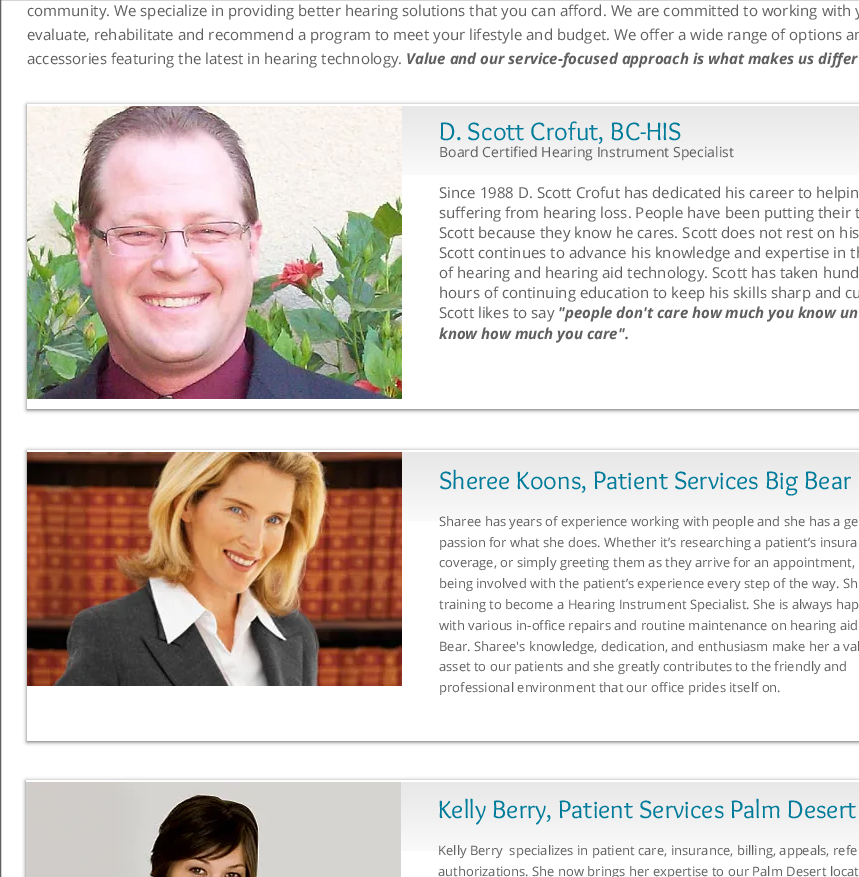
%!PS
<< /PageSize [859 877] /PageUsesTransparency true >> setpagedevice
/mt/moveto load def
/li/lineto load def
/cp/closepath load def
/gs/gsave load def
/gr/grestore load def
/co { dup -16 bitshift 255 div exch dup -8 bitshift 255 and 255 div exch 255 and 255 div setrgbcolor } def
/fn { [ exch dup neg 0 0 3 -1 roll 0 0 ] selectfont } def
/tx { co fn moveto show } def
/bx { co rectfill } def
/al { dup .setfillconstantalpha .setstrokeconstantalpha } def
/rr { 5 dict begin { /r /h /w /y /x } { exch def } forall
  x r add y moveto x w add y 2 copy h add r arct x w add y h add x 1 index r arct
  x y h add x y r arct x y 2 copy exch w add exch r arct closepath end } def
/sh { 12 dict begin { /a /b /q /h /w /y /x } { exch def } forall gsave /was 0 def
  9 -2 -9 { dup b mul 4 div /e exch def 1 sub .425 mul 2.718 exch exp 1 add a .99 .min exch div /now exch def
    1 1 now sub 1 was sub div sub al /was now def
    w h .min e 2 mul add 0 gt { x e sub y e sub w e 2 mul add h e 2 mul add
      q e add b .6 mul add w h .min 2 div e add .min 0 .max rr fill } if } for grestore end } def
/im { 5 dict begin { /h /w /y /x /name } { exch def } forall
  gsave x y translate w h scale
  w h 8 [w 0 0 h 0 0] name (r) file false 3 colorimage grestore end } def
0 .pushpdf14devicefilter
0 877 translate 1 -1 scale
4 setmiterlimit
0 0 859 877 16#FFFFFF bx
16#606060 co
.5 -.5 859 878 rectstroke
gs
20 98 mt 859 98 li 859 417 li 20 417 li cp 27 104 mt 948 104 li 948 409 li 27 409 li cp eoclip newpath
16#000000 co
27 105 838 305 0 2 .6 sh
gr
(media/1.raw) 402 106 457 69 im
(media/2.raw) 27 106 375 293 im
gs
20 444 mt 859 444 li 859 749 li 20 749 li cp 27 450 mt 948 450 li 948 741 li 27 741 li cp eoclip newpath
16#000000 co
27 451 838 291 0 2 .6 sh
gr
(media/1.raw) 402 452 457 69 im
(media/3.raw) 27 452 375 234 im
gs
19 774 mt 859 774 li 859 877 li 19 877 li cp 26 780 mt 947 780 li 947 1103 li 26 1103 li cp eoclip newpath
16#000000 co
26 781 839 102 0 2 .6 sh
gr
(media/4.raw) 401 782 458 69 im
(media/5.raw) 26 782 375 95 im
(community. We specialize in providing better hearing solutions that you can afford. We are committed to working with y) 27 16 /OpenSans-Regular 15 16#606060 tx
(evaluate, rehabilitate and recommend a program to meet your lifestyle and budget. We offer a wide range of options an) 27 40 /OpenSans-Regular 15 16#606060 tx
(accessories featuring the latest in hearing technology.) 27 64 /OpenSans-Regular 15 16#606060 tx
(Value and our service-focused approach is what makes us differ) 406 64 /OpenSans-BoldItalic 15 16#606060 tx
(D. Scott Crofut, BC-HIS) 439 140 /Overlock-Regular 26 16#007B9A tx
(Board Certified Hearing Instrument Specialist) 439 157 /OpenSans-Regular 14 16#606060 tx
(Since 1988 D. Scott Crofut has dedicated his career to helpin) 439 198 /OpenSans-Regular 15 16#606060 tx
(suffering from hearing loss. People have been putting their t) 439 218 /OpenSans-Regular 15 16#606060 tx
(Scott because they know he cares. Scott does not rest on his) 439 238 /OpenSans-Regular 15 16#606060 tx
(Scott continues to advance his knowledge and expertise in th) 439 258 /OpenSans-Regular 15 16#606060 tx
(of hearing and hearing aid technology. Scott has taken hund) 439 278 /OpenSans-Regular 15 16#606060 tx
(hours of continuing education to keep his skills sharp and cu) 439 298 /OpenSans-Regular 15 16#606060 tx
(Scott likes to say) 439 318 /OpenSans-Regular 15 16#606060 tx
("people don't care how much you know un) 558 318 /OpenSans-BoldItalic 15 16#606060 tx
(know how much you care".) 439 339 /OpenSans-BoldItalic 15 16#606060 tx
(Sheree Koons, Patient Services Big Bear) 439 489 /Overlock-Regular 26 16#007B9A tx
(Sharee has years of experience working with people and she has a ge) 439 526 /OpenSans-Regular 13 16#606060 tx
(passion for what she does. Whether it’s researching a patient’s insura) 439 547 /OpenSans-Regular 13 16#606060 tx
(coverage, or simply greeting them as they arrive for an appointment,) 439 567 /OpenSans-Regular 13 16#606060 tx
(being involved with the patient’s experience every step of the way. Sh) 439 588 /OpenSans-Regular 13 16#606060 tx
(training to become a Hearing Instrument Specialist. She is always hap) 439 609 /OpenSans-Regular 13 16#606060 tx
(with various in-office repairs and routine maintenance on hearing aid) 439 630 /OpenSans-Regular 13 16#606060 tx
(Bear. Sharee's knowledge, dedication, and enthusiasm make her a val) 439 651 /OpenSans-Regular 13 16#606060 tx
(asset to our patients and she greatly contributes to the friendly and) 439 671 /OpenSans-Regular 13 16#606060 tx
(professional environment that our office prides itself on.) 439 692 /OpenSans-Regular 13 16#606060 tx
(Kelly Berry, Patient Services Palm Desert) 438 818 /Overlock-Regular 26 16#007B9A tx
(Kelly Berry  specializes in patient care, insurance, billing, appeals, refe) 438 855 /OpenSans-Regular 13 16#606060 tx
(authorizations. She now brings her expertise to our Palm Desert locat) 438 876 /OpenSans-Regular 13 16#606060 tx
.poppdf14devicefilter showpage
